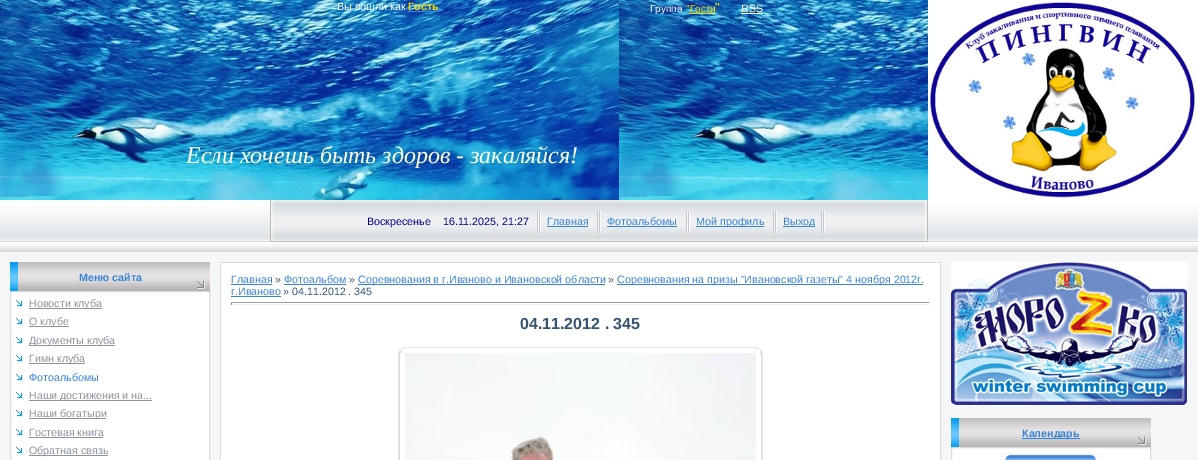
%!PS
<< /PageSize [1198 460] /PageUsesTransparency true >> setpagedevice
/mt/moveto load def
/li/lineto load def
/ct/curveto load def
/cp/closepath load def
/fl/fill load def
/st/stroke load def
/gs/gsave load def
/gr/grestore load def
/co { dup -16 bitshift 255 div exch dup -8 bitshift 255 and 255 div exch 255 and 255 div setrgbcolor } def
/fn { [ exch dup neg 0 0 3 -1 roll 0 0 ] selectfont } def
/tx { co fn moveto show } def
/bx { co rectfill } def
/al { dup .setfillconstantalpha .setstrokeconstantalpha } def
/rr { 5 dict begin { /r /h /w /y /x } { exch def } forall
  x r add y moveto x w add y 2 copy h add r arct x w add y h add x 1 index r arct
  x y h add x y r arct x y 2 copy exch w add exch r arct closepath end } def
/sh { 12 dict begin { /a /b /q /h /w /y /x } { exch def } forall gsave /was 0 def
  9 -2 -9 { dup b mul 4 div /e exch def 1 sub .425 mul 2.718 exch exp 1 add a .99 .min exch div /now exch def
    1 1 now sub 1 was sub div sub al /was now def
    w h .min e 2 mul add 0 gt { x e sub y e sub w e 2 mul add h e 2 mul add
      q e add b .6 mul add w h .min 2 div e add .min 0 .max rr fill } if } for grestore end } def
/im { 5 dict begin { /h /w /y /x /name } { exch def } forall
  gsave x y translate w h scale
  w h 8 [w 0 0 h 0 0] name (r) file false 3 colorimage grestore end } def
0 .pushpdf14devicefilter
0 460 translate 1 -1 scale
4 setmiterlimit
0 0 1198 460 16#F5F6F7 bx
(media/1.raw) 0 0 928 200 im
408 11 30 1 16#3984D8 bx
689 13 26 1 16#FFD700 bx
741 13 22 1 16#FFFFE0 bx
(media/2.raw) 928 0 270 200 im
(media/3.raw) 0 200 1198 52 im
(media/4.raw) 270 200 658 52 im
(media/5.raw) 537 211 4 22 im
547 226 41 1 16#3984D8 bx
(media/5.raw) 597 211 4 22 im
607 226 70 1 16#3984D8 bx
(media/5.raw) 686 211 4 22 im
696 226 68 1 16#3984D8 bx
(media/5.raw) 773 211 4 22 im
783 226 32 1 16#3984D8 bx
(media/5.raw) 821 211 4 22 im
(media/6.raw) 10 262 200 29 im
16#FFFFFF co
10.5 291.5 mt 209.5 291.5 li 209.5 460.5 li 10.5 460.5 li cp gs fl gr
16#DCDADA co
st
(media/7.raw) 16 300 7 7 im
29 308 73 1 16#8D949E bx
(media/7.raw) 16 318 7 7 im
29 326 40 1 16#8D949E bx
(media/7.raw) 16 337 7 7 im
29 345 86 1 16#8D949E bx
(media/7.raw) 16 355 7 7 im
29 363 56 1 16#8D949E bx
(media/7.raw) 16 374 7 7 im
(media/7.raw) 16 392 7 7 im
29 400 123 1 16#8D949E bx
(media/7.raw) 16 410 7 7 im
29 418 77 1 16#8D949E bx
(media/7.raw) 16 429 7 7 im
29 437 74 1 16#8D949E bx
(media/7.raw) 16 447 7 7 im
29 455 79 1 16#8D949E bx
16#DCDADA co
220.5 262.5 720 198 rectstroke
221 263 719 197 16#FFFFFF bx
231 284 41 1 16#3984D8 bx
284 284 62 1 16#3984D8 bx
358 284 247 1 16#3984D8 bx
617 284 306 1 16#3984D8 bx
231 296 50 1 16#3984D8 bx
231 302 699 1 16#9F9F9F bx
929 302 1 3 16#EEEEEE bx
231 304 699 1 16#EEEEEE bx
231 302 1 3 16#9F9F9F bx
gs
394 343 mt 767 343 li 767 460 li 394 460 li cp 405 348 mt 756 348 li 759 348 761 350 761 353 ct 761 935 li 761 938 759 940 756 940 ct 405 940 li 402 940 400 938 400 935 ct 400 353 li 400 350 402 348 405 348 ct cp eoclip newpath
16#000000 co
400 349 361 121 5 1.5 .37 sh
gr
(media/8.raw) 405 353 351 107 im
(media/9.raw) 951 262 237 144 im
(media/6.raw) 951 418 200 29 im
1022 438 58 1 16#3984D8 bx
952 448 198 12 16#FFFFFF bx
(media/10.raw) 1002 453 98 7 im
16#DCDADA co
951.5 447.5 199 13 rectstroke
(Вы вошли как) 337 10 /LiberationSans-Regular 10.7 16#FFFFFF tx
(Гость) 408 10 /LiberationSans-Bold 10.7 16#FFD700 tx
(Если хочешь быть здоров - закаляйся!) 186 163 /LiberationSerif-Italic 24 16#FFFFE0 tx
(Группа) 650 12 /LiberationSans-Regular 10 16#FFFFFF tx
("Гости) 686 12 /LiberationSans-Regular 10 16#FFD700 tx
(") 715 12 /LiberationSans-Regular 13 16#FFD700 tx
(RSS) 741 12 /LiberationSans-Regular 10.7 16#FFFFE0 tx
(Воскресенье    16.11.2025, 21:27) 367 225 /LiberationSans-Regular 10.7 16#000080 tx
(Главная) 547 225 /LiberationSans-Regular 10.7 16#3984D8 tx
(Фотоальбомы) 607 225 /LiberationSans-Regular 10.7 16#3984D8 tx
(Мой профиль) 696 225 /LiberationSans-Regular 10.7 16#3984D8 tx
(Выход) 783 225 /LiberationSans-Regular 10.7 16#3984D8 tx
(Меню сайта) 79 281 /LiberationSans-Bold 10.7 16#3984D8 tx
(Новости клуба) 29 307 /LiberationSans-Regular 10.7 16#8D949E tx
(О клубе) 29 325 /LiberationSans-Regular 10.7 16#8D949E tx
(Документы клуба) 29 344 /LiberationSans-Regular 10.7 16#8D949E tx
(Гимн клуба) 29 362 /LiberationSans-Regular 10.7 16#8D949E tx
(Фотоальбомы) 29 381 /LiberationSans-Regular 10.7 16#3984D8 tx
(Наши достижения и на...) 29 399 /LiberationSans-Regular 10.7 16#8D949E tx
(Наши богатыри) 29 417 /LiberationSans-Regular 10.7 16#8D949E tx
(Гостевая книга) 29 436 /LiberationSans-Regular 10.7 16#8D949E tx
(Обратная связь) 29 454 /LiberationSans-Regular 10.7 16#8D949E tx
(Главная) 231 283 /LiberationSans-Regular 10.7 16#3984D8 tx
(») 275 283 /LiberationSans-Regular 10.7 16#355473 tx
(Фотоальбом) 284 283 /LiberationSans-Regular 10.7 16#3984D8 tx
(») 349 283 /LiberationSans-Regular 10.7 16#355473 tx
(Соревнования в г.Иваново и Ивановской области) 358 283 /LiberationSans-Regular 10.7 16#3984D8 tx
(») 608 283 /LiberationSans-Regular 10.7 16#355473 tx
(Соревнования на призы "Ивановской газеты" 4 ноября 2012г.) 617 283 /LiberationSans-Regular 10.7 16#3984D8 tx
(г.Иваново) 231 295 /LiberationSans-Regular 10.7 16#3984D8 tx
(» 04.11.2012 . 345) 283 295 /LiberationSans-Regular 10.7 16#355473 tx
(04.11.2012 . 345) 520 329 /LiberationSans-Bold 16 16#355473 tx
(Календарь) 1022 437 /LiberationSans-Bold 10.7 16#3984D8 tx
.poppdf14devicefilter showpage
